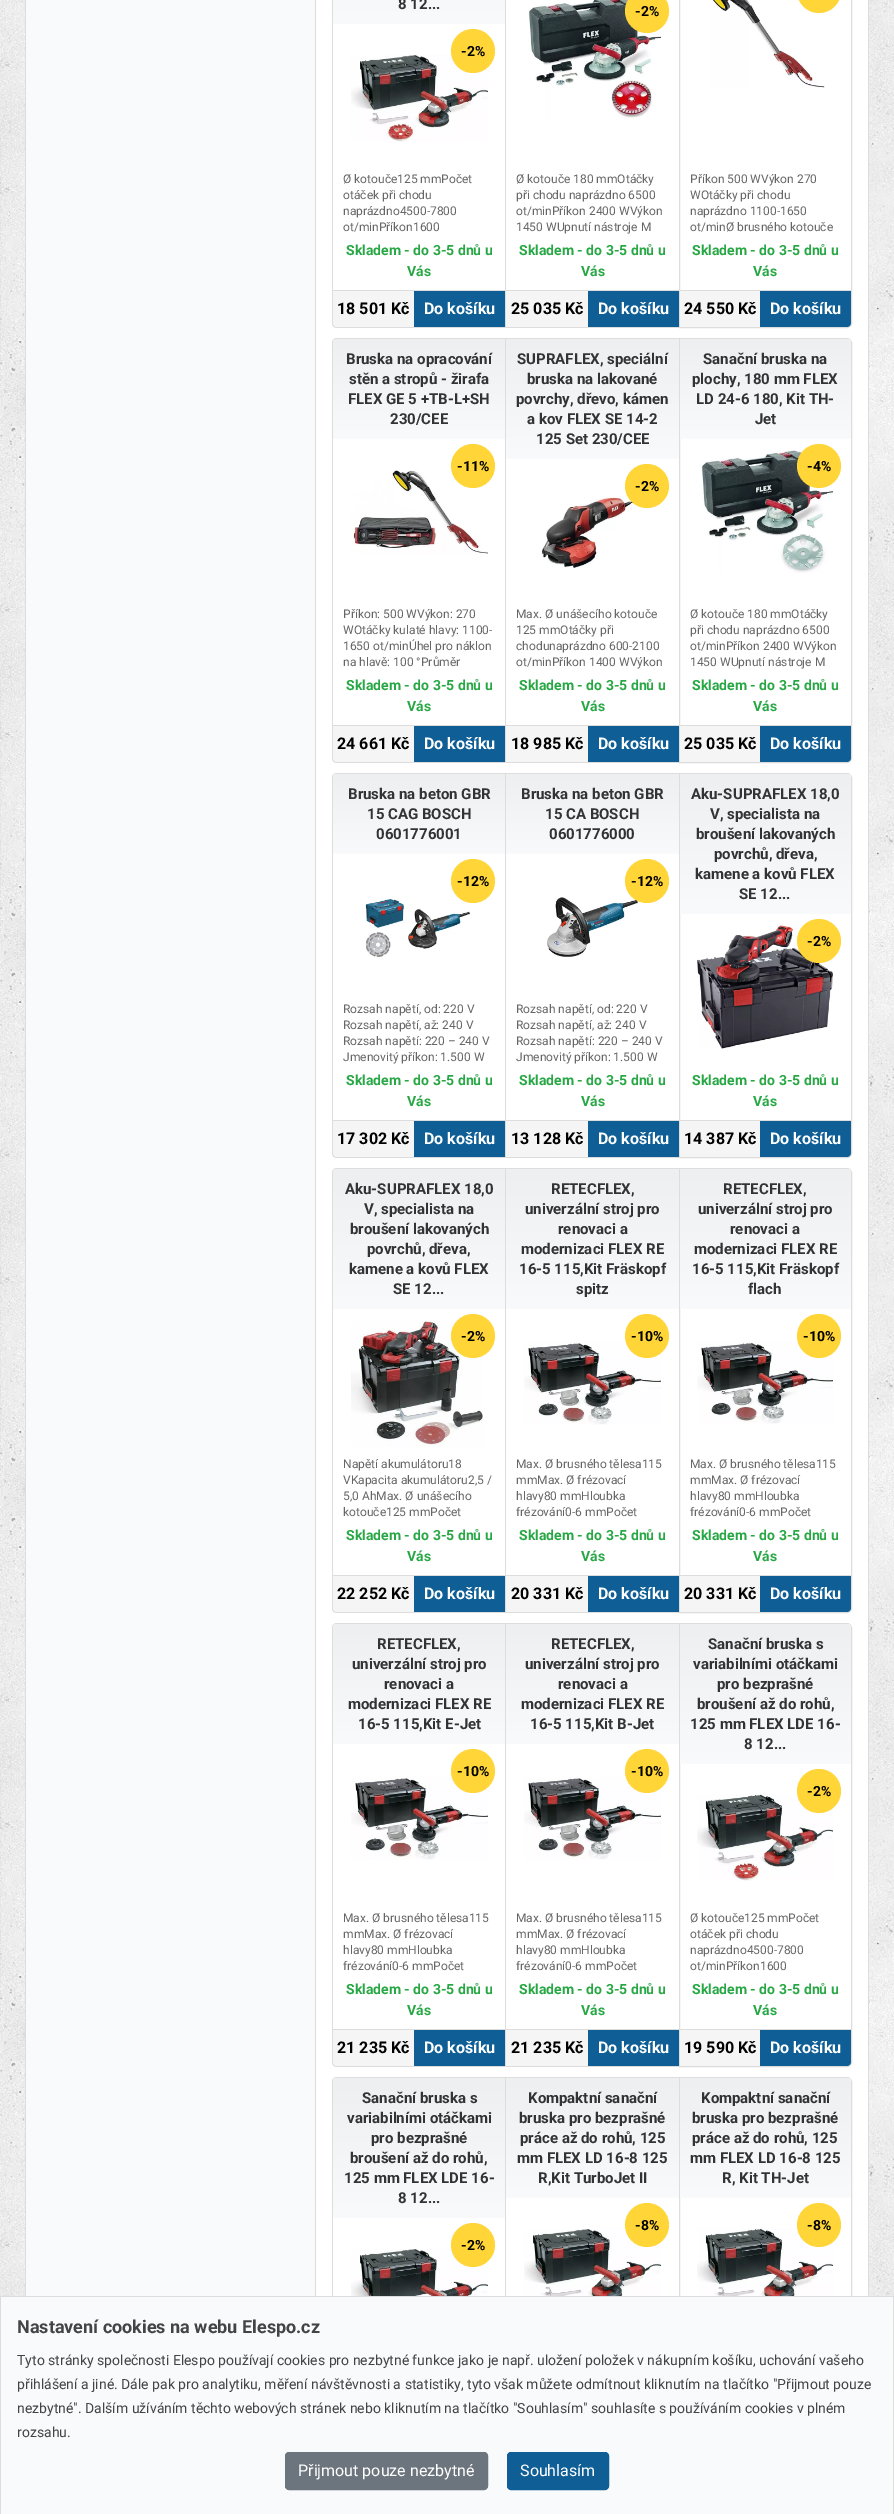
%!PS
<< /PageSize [894 2514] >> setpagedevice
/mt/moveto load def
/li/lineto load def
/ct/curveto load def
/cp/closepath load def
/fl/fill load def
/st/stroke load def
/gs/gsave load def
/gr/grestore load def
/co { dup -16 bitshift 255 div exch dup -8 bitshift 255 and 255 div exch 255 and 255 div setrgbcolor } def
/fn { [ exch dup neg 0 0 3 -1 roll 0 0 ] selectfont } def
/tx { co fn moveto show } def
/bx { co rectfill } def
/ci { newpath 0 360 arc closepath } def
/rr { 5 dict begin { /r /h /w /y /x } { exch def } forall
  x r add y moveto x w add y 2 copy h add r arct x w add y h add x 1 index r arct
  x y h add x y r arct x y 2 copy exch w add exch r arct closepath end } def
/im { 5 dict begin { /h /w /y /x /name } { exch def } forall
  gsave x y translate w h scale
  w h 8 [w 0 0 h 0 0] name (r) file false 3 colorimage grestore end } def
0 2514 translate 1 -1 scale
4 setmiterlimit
0 0 894 2514 16#FFFFFF bx
(media/1.raw) 0 0 894 2296 im
316 0 552 2296 16#FFFFFF bx
868 0 1 2296 16#DDDDDD bx
25 0 1 2296 16#DDDDDD bx
26 0 289 2296 16#F8FAFC bx
16#DDDDDD co
26 -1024 mt 311 -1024 li 314 -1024 316 -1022 316 -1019 ct 316 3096 li 26 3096 li cp 26 -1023 mt 311 -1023 li 313 -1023 315 -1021 315 -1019 ct 315 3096 li 26 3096 li cp eofill
337 -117 mt 505 -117 li 505 328 li 337 328 li 334 328 332 326 332 323 ct 332 -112 li 332 -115 334 -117 337 -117 ct cp 337 -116 mt 505 -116 li 505 327 li 337 327 li 335 327 333 325 333 323 ct 333 -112 li 333 -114 335 -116 337 -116 ct cp eofill
gs 333 0 mt 505 0 li 505 24 li 333 24 li cp clip newpath
<< /ShadingType 2 /ColorSpace /DeviceRGB /Coords [419 -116 419 24] /Extend [true true] /Function << /FunctionType 2 /Domain [0 1] /C0 [.929 .937 .945] /C1 [.973 .98 .988] /N 1 >> >> shfill gr
(media/2.raw) 351 55 137 87 im
16#FFD538 co
473 51 22 ci fl
333 290 172 1 16#DDDDDD bx
16#F5F5F5 co
333 291 mt 414 291 li 414 327 li 337 327 li 335 327 333 325 333 323 ct cp fl
414 291 91 36 16#0F5F96 bx
505 327 174 1 16#DDDDDD bx
505 0 1 328 16#DDDDDD bx
(media/3.raw) 528 0 133 118 im
16#FFD538 co
647 11 22 ci fl
506 290 173 1 16#DDDDDD bx
506 291 82 36 16#F5F5F5 bx
588 291 91 36 16#0F5F96 bx
16#DDDDDD co
679.5 -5.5 mt 847 -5.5 li 849.5 -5.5 851.5 -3.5 851.5 -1 ct 851.5 323 li 851.5 325.5 849.5 327.5 847 327.5 ct 679.5 327.5 li cp st
(media/4.raw) 711 0 114 88 im
16#FFD538 co
797 -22 44 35 22 rr fl
680 290 171 1 16#DDDDDD bx
680 291 80 36 16#F5F5F5 bx
16#0F5F96 co
760 291 mt 851 291 li 851 323 li 851 325 849 327 847 327 ct 760 327 li cp fl
16#DDDDDD co
337 338 mt 505 338 li 505 763 li 337 763 li 334 763 332 761 332 758 ct 332 343 li 332 340 334 338 337 338 ct cp 337 339 mt 505 339 li 505 762 li 337 762 li 335 762 333 760 333 758 ct 333 343 li 333 341 335 339 337 339 ct cp eofill
gs 337 339 mt 505 339 li 505 439 li 333 439 li 333 343 li 333 341 335 339 337 339 ct cp clip newpath
<< /ShadingType 2 /ColorSpace /DeviceRGB /Coords [419 339 419 439] /Extend [true true] /Function << /FunctionType 2 /Domain [0 1] /C0 [.929 .937 .945] /C1 [.973 .98 .988] /N 1 >> >> shfill gr
(media/5.raw) 351 470 137 84 im
16#FFD538 co
473 466 22 ci fl
333 725 172 1 16#DDDDDD bx
16#F5F5F5 co
333 726 mt 414 726 li 414 762 li 337 762 li 335 762 333 760 333 758 ct cp fl
414 726 91 36 16#0F5F96 bx
505 338 174 1 16#DDDDDD bx
505 762 174 1 16#DDDDDD bx
505 338 1 425 16#DDDDDD bx
gs 506 339 mt 679 339 li 679 459 li 506 459 li cp clip newpath
<< /ShadingType 2 /ColorSpace /DeviceRGB /Coords [593 339 593 459] /Extend [true true] /Function << /FunctionType 2 /Domain [0 1] /C0 [.929 .937 .945] /C1 [.973 .98 .988] /N 1 >> >> shfill gr
(media/6.raw) 541 497 104 71 im
16#FFD538 co
647 486 22 ci fl
506 725 173 1 16#DDDDDD bx
506 726 82 36 16#F5F5F5 bx
588 726 91 36 16#0F5F96 bx
16#DDDDDD co
679.5 338.5 mt 847 338.5 li 849.5 338.5 851.5 340.5 851.5 343 ct 851.5 758 li 851.5 760.5 849.5 762.5 847 762.5 ct 679.5 762.5 li cp st
gs 680 339 mt 847 339 li 849 339 851 341 851 343 ct 851 439 li 680 439 li cp clip newpath
<< /ShadingType 2 /ColorSpace /DeviceRGB /Coords [766 339 766 439] /Extend [true true] /Function << /FunctionType 2 /Domain [0 1] /C0 [.929 .937 .945] /C1 [.973 .98 .988] /N 1 >> >> shfill gr
(media/7.raw) 701 450 132 123 im
16#FFD538 co
819 466 22 ci fl
680 725 171 1 16#DDDDDD bx
680 726 80 36 16#F5F5F5 bx
16#0F5F96 co
760 726 mt 851 726 li 851 758 li 851 760 849 762 847 762 ct 760 762 li cp fl
16#DDDDDD co
337 773 mt 505 773 li 505 1158 li 337 1158 li 334 1158 332 1156 332 1153 ct 332 778 li 332 775 334 773 337 773 ct cp 337 774 mt 505 774 li 505 1157 li 337 1157 li 335 1157 333 1155 333 1153 ct 333 778 li 333 776 335 774 337 774 ct cp eofill
gs 337 774 mt 505 774 li 505 854 li 333 854 li 333 778 li 333 776 335 774 337 774 ct cp clip newpath
<< /ShadingType 2 /ColorSpace /DeviceRGB /Coords [419 774 419 854] /Extend [true true] /Function << /FunctionType 2 /Domain [0 1] /C0 [.929 .937 .945] /C1 [.973 .98 .988] /N 1 >> >> shfill gr
(media/8.raw) 365 898 105 60 im
16#FFD538 co
473 881 22 ci fl
333 1120 172 1 16#DDDDDD bx
16#F5F5F5 co
333 1121 mt 414 1121 li 414 1157 li 337 1157 li 335 1157 333 1155 333 1153 ct cp fl
414 1121 91 36 16#0F5F96 bx
505 773 174 1 16#DDDDDD bx
505 1157 174 1 16#DDDDDD bx
505 773 1 385 16#DDDDDD bx
gs 506 774 mt 679 774 li 679 854 li 506 854 li cp clip newpath
<< /ShadingType 2 /ColorSpace /DeviceRGB /Coords [593 774 593 854] /Extend [true true] /Function << /FunctionType 2 /Domain [0 1] /C0 [.929 .937 .945] /C1 [.973 .98 .988] /N 1 >> >> shfill gr
(media/9.raw) 547 897 91 60 im
16#FFD538 co
647 881 22 ci fl
506 1120 173 1 16#DDDDDD bx
506 1121 82 36 16#F5F5F5 bx
588 1121 91 36 16#0F5F96 bx
16#DDDDDD co
679.5 773.5 mt 847 773.5 li 849.5 773.5 851.5 775.5 851.5 778 ct 851.5 1153 li 851.5 1155.5 849.5 1157.5 847 1157.5 ct 679.5 1157.5 li cp st
gs 680 774 mt 847 774 li 849 774 851 776 851 778 ct 851 914 li 680 914 li cp clip newpath
<< /ShadingType 2 /ColorSpace /DeviceRGB /Coords [766 774 766 914] /Extend [true true] /Function << /FunctionType 2 /Domain [0 1] /C0 [.929 .937 .945] /C1 [.973 .98 .988] /N 1 >> >> shfill gr
(media/10.raw) 697 925 136 124 im
16#FFD538 co
819 941 22 ci fl
680 1120 171 1 16#DDDDDD bx
680 1121 80 36 16#F5F5F5 bx
16#0F5F96 co
760 1121 mt 851 1121 li 851 1153 li 851 1155 849 1157 847 1157 ct 760 1157 li cp fl
16#DDDDDD co
337 1168 mt 505 1168 li 505 1613 li 337 1613 li 334 1613 332 1611 332 1608 ct 332 1173 li 332 1170 334 1168 337 1168 ct cp 337 1169 mt 505 1169 li 505 1612 li 337 1612 li 335 1612 333 1610 333 1608 ct 333 1173 li 333 1171 335 1169 337 1169 ct cp eofill
gs 337 1169 mt 505 1169 li 505 1309 li 333 1309 li 333 1173 li 333 1171 335 1169 337 1169 ct cp clip newpath
<< /ShadingType 2 /ColorSpace /DeviceRGB /Coords [419 1169 419 1309] /Extend [true true] /Function << /FunctionType 2 /Domain [0 1] /C0 [.929 .937 .945] /C1 [.973 .98 .988] /N 1 >> >> shfill gr
(media/11.raw) 351 1321 132 126 im
16#FFD538 co
473 1336 22 ci fl
333 1575 172 1 16#DDDDDD bx
16#F5F5F5 co
333 1576 mt 414 1576 li 414 1612 li 337 1612 li 335 1612 333 1610 333 1608 ct cp fl
414 1576 91 36 16#0F5F96 bx
505 1168 174 1 16#DDDDDD bx
505 1612 174 1 16#DDDDDD bx
505 1168 1 445 16#DDDDDD bx
gs 506 1169 mt 679 1169 li 679 1309 li 506 1309 li cp clip newpath
<< /ShadingType 2 /ColorSpace /DeviceRGB /Coords [593 1169 593 1309] /Extend [true true] /Function << /FunctionType 2 /Domain [0 1] /C0 [.929 .937 .945] /C1 [.973 .98 .988] /N 1 >> >> shfill gr
(media/12.raw) 524 1342 137 83 im
16#FFD538 co
647 1336 22 ci fl
506 1575 173 1 16#DDDDDD bx
506 1576 82 36 16#F5F5F5 bx
588 1576 91 36 16#0F5F96 bx
16#DDDDDD co
679.5 1168.5 mt 847 1168.5 li 849.5 1168.5 851.5 1170.5 851.5 1173 ct 851.5 1608 li 851.5 1610.5 849.5 1612.5 847 1612.5 ct 679.5 1612.5 li cp st
gs 680 1169 mt 847 1169 li 849 1169 851 1171 851 1173 ct 851 1309 li 680 1309 li cp clip newpath
<< /ShadingType 2 /ColorSpace /DeviceRGB /Coords [766 1169 766 1309] /Extend [true true] /Function << /FunctionType 2 /Domain [0 1] /C0 [.929 .937 .945] /C1 [.973 .98 .988] /N 1 >> >> shfill gr
(media/13.raw) 697 1342 136 82 im
16#FFD538 co
819 1336 22 ci fl
680 1575 171 1 16#DDDDDD bx
680 1576 80 36 16#F5F5F5 bx
16#0F5F96 co
760 1576 mt 851 1576 li 851 1608 li 851 1610 849 1612 847 1612 ct 760 1612 li cp fl
16#DDDDDD co
337 1623 mt 505 1623 li 505 2067 li 337 2067 li 334 2067 332 2065 332 2062 ct 332 1628 li 332 1625 334 1623 337 1623 ct cp 337 1624 mt 505 1624 li 505 2066 li 337 2066 li 335 2066 333 2064 333 2062 ct 333 1628 li 333 1626 335 1624 337 1624 ct cp eofill
gs 337 1624 mt 505 1624 li 505 1744 li 333 1744 li 333 1628 li 333 1626 335 1624 337 1624 ct cp clip newpath
<< /ShadingType 2 /ColorSpace /DeviceRGB /Coords [419 1624 419 1744] /Extend [true true] /Function << /FunctionType 2 /Domain [0 1] /C0 [.929 .937 .945] /C1 [.973 .98 .988] /N 1 >> >> shfill gr
(media/12.raw) 351 1777 137 83 im
16#FFD538 co
473 1771 22 ci fl
333 2029 172 1 16#DDDDDD bx
16#F5F5F5 co
333 2030 mt 414 2030 li 414 2066 li 337 2066 li 335 2066 333 2064 333 2062 ct cp fl
414 2030 91 36 16#0F5F96 bx
505 1623 174 1 16#DDDDDD bx
505 2066 174 1 16#DDDDDD bx
505 1623 1 444 16#DDDDDD bx
gs 506 1624 mt 679 1624 li 679 1744 li 506 1744 li cp clip newpath
<< /ShadingType 2 /ColorSpace /DeviceRGB /Coords [593 1624 593 1744] /Extend [true true] /Function << /FunctionType 2 /Domain [0 1] /C0 [.929 .937 .945] /C1 [.973 .98 .988] /N 1 >> >> shfill gr
(media/12.raw) 524 1777 137 83 im
16#FFD538 co
647 1771 22 ci fl
506 2029 173 1 16#DDDDDD bx
506 2030 82 36 16#F5F5F5 bx
588 2030 91 36 16#0F5F96 bx
16#DDDDDD co
679.5 1623.5 mt 847 1623.5 li 849.5 1623.5 851.5 1625.5 851.5 1628 ct 851.5 2062 li 851.5 2064.5 849.5 2066.5 847 2066.5 ct 679.5 2066.5 li cp st
gs 680 1624 mt 847 1624 li 849 1624 851 1626 851 1628 ct 851 1764 li 680 1764 li cp clip newpath
<< /ShadingType 2 /ColorSpace /DeviceRGB /Coords [766 1624 766 1764] /Extend [true true] /Function << /FunctionType 2 /Domain [0 1] /C0 [.929 .937 .945] /C1 [.973 .98 .988] /N 1 >> >> shfill gr
(media/14.raw) 697 1794 136 87 im
16#FFD538 co
819 1791 22 ci fl
680 2029 171 1 16#DDDDDD bx
680 2030 80 36 16#F5F5F5 bx
16#0F5F96 co
760 2030 mt 851 2030 li 851 2062 li 851 2064 849 2066 847 2066 ct 760 2066 li cp fl
16#DDDDDD co
337 2077 mt 505 2077 li 505 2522 li 337 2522 li 334 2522 332 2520 332 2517 ct 332 2082 li 332 2079 334 2077 337 2077 ct cp 337 2078 mt 505 2078 li 505 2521 li 337 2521 li 335 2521 333 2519 333 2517 ct 333 2082 li 333 2080 335 2078 337 2078 ct cp eofill
gs 337 2078 mt 505 2078 li 505 2218 li 333 2218 li 333 2082 li 333 2080 335 2078 337 2078 ct cp clip newpath
<< /ShadingType 2 /ColorSpace /DeviceRGB /Coords [419 2078 419 2218] /Extend [true true] /Function << /FunctionType 2 /Domain [0 1] /C0 [.929 .937 .945] /C1 [.973 .98 .988] /N 1 >> >> shfill gr
(media/15.raw) 351 2249 137 47 im
16#FFD538 co
473 2245 22 ci fl
505 2077 174 1 16#DDDDDD bx
505 2077 1 219 16#DDDDDD bx
gs 506 2078 mt 679 2078 li 679 2198 li 506 2198 li cp clip newpath
<< /ShadingType 2 /ColorSpace /DeviceRGB /Coords [593 2078 593 2198] /Extend [true true] /Function << /FunctionType 2 /Domain [0 1] /C0 [.929 .937 .945] /C1 [.973 .98 .988] /N 1 >> >> shfill gr
(media/16.raw) 524 2229 137 67 im
16#FFD538 co
647 2225 22 ci fl
16#DDDDDD co
679.5 2077.5 mt 847 2077.5 li 849.5 2077.5 851.5 2079.5 851.5 2082 ct 851.5 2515 li 851.5 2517.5 849.5 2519.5 847 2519.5 ct 679.5 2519.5 li cp st
gs 680 2078 mt 847 2078 li 849 2078 851 2080 851 2082 ct 851 2198 li 680 2198 li cp clip newpath
<< /ShadingType 2 /ColorSpace /DeviceRGB /Coords [766 2078 766 2198] /Extend [true true] /Function << /FunctionType 2 /Domain [0 1] /C0 [.929 .937 .945] /C1 [.973 .98 .988] /N 1 >> >> shfill gr
(media/17.raw) 697 2228 136 68 im
16#FFD538 co
819 2225 22 ci fl
1 2297 892 217 16#F8FAFC bx
0 2296 894 1 16#DDDDDD bx
893 2296 1 218 16#DDDDDD bx
0 2296 1 218 16#DDDDDD bx
16#6C757D co
285.5 2452.5 202 37 3.5 rr gs fl gr
st
16#0F5F96 co
507.5 2452.5 101 37 3.5 rr gs fl gr
st
(8 12...) 398 9 /Roboto-Bold 15 16#333333 tx
(-2%) 461 56 /Roboto-Bold 14 16#000000 tx
(Ø kotouče125 mmPočet) 343 183 /Roboto-Regular 12 16#666666 tx
(otáček při chodu) 343 199 /Roboto-Regular 12 16#666666 tx
(naprázdno4500-7800) 343 215 /Roboto-Regular 12 16#666666 tx
(ot/minPříkon1600) 343 231 /Roboto-Regular 12 16#666666 tx
(Skladem - do 3-5 dnů u) 346 255 /Roboto-Bold 14 16#28A745 tx
(Vás) 407 276 /Roboto-Bold 14 16#28A745 tx
(18 501 Kč) 337 314 /Roboto-Bold 16 16#000000 tx
(Do košíku) 424 314 /Roboto-Bold 16 16#FFFFFF tx
(-2%) 635 16 /Roboto-Bold 14 16#000000 tx
(Ø kotouče 180 mmOtáčky) 516 183 /Roboto-Regular 12 16#666666 tx
(při chodu naprázdno 6500) 516 199 /Roboto-Regular 12 16#666666 tx
(ot/minPříkon 2400 WVýkon) 516 215 /Roboto-Regular 12 16#666666 tx
(1450 WUpnutí nástroje M) 516 231 /Roboto-Regular 12 16#666666 tx
(Skladem - do 3-5 dnů u) 519 255 /Roboto-Bold 14 16#28A745 tx
(Vás) 581 276 /Roboto-Bold 14 16#28A745 tx
(25 035 Kč) 511 314 /Roboto-Bold 16 16#000000 tx
(Do košíku) 598 314 /Roboto-Bold 16 16#FFFFFF tx
(Příkon 500 WVýkon 270) 690 183 /Roboto-Regular 12 16#666666 tx
(WOtáčky při chodu) 690 199 /Roboto-Regular 12 16#666666 tx
(naprázdno 1100-1650) 690 215 /Roboto-Regular 12 16#666666 tx
(ot/minØ brusného kotouče) 690 231 /Roboto-Regular 12 16#666666 tx
(Skladem - do 3-5 dnů u) 692 255 /Roboto-Bold 14 16#28A745 tx
(Vás) 753 276 /Roboto-Bold 14 16#28A745 tx
(24 550 Kč) 684 314 /Roboto-Bold 16 16#000000 tx
(Do košíku) 770 314 /Roboto-Bold 16 16#FFFFFF tx
(Bruska na opracování) 346 364 /Roboto-Bold 15 16#333333 tx
(stěn a stropů - žirafa) 349 384 /Roboto-Bold 15 16#333333 tx
(FLEX GE 5 +TB-L+SH) 348 404 /Roboto-Bold 15 16#333333 tx
(230/CEE) 390 424 /Roboto-Bold 15 16#333333 tx
(-11%) 457 471 /Roboto-Bold 14 16#000000 tx
(Příkon: 500 WVýkon: 270) 343 618 /Roboto-Regular 12 16#666666 tx
(WOtáčky kulaté hlavy: 1100-) 343 634 /Roboto-Regular 12 16#666666 tx
(1650 ot/minÚhel pro náklon) 343 650 /Roboto-Regular 12 16#666666 tx
(na hlavě: 100 °Průměr) 343 666 /Roboto-Regular 12 16#666666 tx
(Skladem - do 3-5 dnů u) 346 690 /Roboto-Bold 14 16#28A745 tx
(Vás) 407 711 /Roboto-Bold 14 16#28A745 tx
(24 661 Kč) 337 749 /Roboto-Bold 16 16#000000 tx
(Do košíku) 424 749 /Roboto-Bold 16 16#FFFFFF tx
(SUPRAFLEX, speciální) 517 364 /Roboto-Bold 15 16#333333 tx
(bruska na lakované) 527 384 /Roboto-Bold 15 16#333333 tx
(povrchy, dřevo, kámen) 516 404 /Roboto-Bold 15 16#333333 tx
(a kov FLEX SE 14-2) 527 424 /Roboto-Bold 15 16#333333 tx
(125 Set 230/CEE) 536 444 /Roboto-Bold 15 16#333333 tx
(-2%) 635 491 /Roboto-Bold 14 16#000000 tx
(Max. Ø unášecího kotouče) 516 618 /Roboto-Regular 12 16#666666 tx
(125 mmOtáčky při) 516 634 /Roboto-Regular 12 16#666666 tx
(chodunaprázdno 600-2100) 516 650 /Roboto-Regular 12 16#666666 tx
(ot/minPříkon 1400 WVýkon) 516 666 /Roboto-Regular 12 16#666666 tx
(Skladem - do 3-5 dnů u) 519 690 /Roboto-Bold 14 16#28A745 tx
(Vás) 581 711 /Roboto-Bold 14 16#28A745 tx
(18 985 Kč) 511 749 /Roboto-Bold 16 16#000000 tx
(Do košíku) 598 749 /Roboto-Bold 16 16#FFFFFF tx
(Sanační bruska na) 703 364 /Roboto-Bold 15 16#333333 tx
(plochy, 180 mm FLEX) 692 384 /Roboto-Bold 15 16#333333 tx
(LD 24-6 180, Kit TH-) 696 404 /Roboto-Bold 15 16#333333 tx
(Jet) 755 424 /Roboto-Bold 15 16#333333 tx
(-4%) 807 471 /Roboto-Bold 14 16#000000 tx
(Ø kotouče 180 mmOtáčky) 690 618 /Roboto-Regular 12 16#666666 tx
(při chodu naprázdno 6500) 690 634 /Roboto-Regular 12 16#666666 tx
(ot/minPříkon 2400 WVýkon) 690 650 /Roboto-Regular 12 16#666666 tx
(1450 WUpnutí nástroje M) 690 666 /Roboto-Regular 12 16#666666 tx
(Skladem - do 3-5 dnů u) 692 690 /Roboto-Bold 14 16#28A745 tx
(Vás) 753 711 /Roboto-Bold 14 16#28A745 tx
(25 035 Kč) 684 749 /Roboto-Bold 16 16#000000 tx
(Do košíku) 770 749 /Roboto-Bold 16 16#FFFFFF tx
(Bruska na beton GBR) 348 799 /Roboto-Bold 15 16#333333 tx
(15 CAG BOSCH) 367 819 /Roboto-Bold 15 16#333333 tx
(0601776001) 376 839 /Roboto-Bold 15 16#333333 tx
(-12%) 457 886 /Roboto-Bold 14 16#000000 tx
(Rozsah napětí, od: 220 V) 343 1013 /Roboto-Regular 12 16#666666 tx
(Rozsah napětí, až: 240 V) 343 1029 /Roboto-Regular 12 16#666666 tx
(Rozsah napětí: 220 – 240 V) 343 1045 /Roboto-Regular 12 16#666666 tx
(Jmenovitý příkon: 1.500 W) 343 1061 /Roboto-Regular 12 16#666666 tx
(Skladem - do 3-5 dnů u) 346 1085 /Roboto-Bold 14 16#28A745 tx
(Vás) 407 1106 /Roboto-Bold 14 16#28A745 tx
(17 302 Kč) 337 1144 /Roboto-Bold 16 16#000000 tx
(Do košíku) 424 1144 /Roboto-Bold 16 16#FFFFFF tx
(Bruska na beton GBR) 521 799 /Roboto-Bold 15 16#333333 tx
(15 CA BOSCH) 545 819 /Roboto-Bold 15 16#333333 tx
(0601776000) 549 839 /Roboto-Bold 15 16#333333 tx
(-12%) 631 886 /Roboto-Bold 14 16#000000 tx
(Rozsah napětí, od: 220 V) 516 1013 /Roboto-Regular 12 16#666666 tx
(Rozsah napětí, až: 240 V) 516 1029 /Roboto-Regular 12 16#666666 tx
(Rozsah napětí: 220 – 240 V) 516 1045 /Roboto-Regular 12 16#666666 tx
(Jmenovitý příkon: 1.500 W) 516 1061 /Roboto-Regular 12 16#666666 tx
(Skladem - do 3-5 dnů u) 519 1085 /Roboto-Bold 14 16#28A745 tx
(Vás) 581 1106 /Roboto-Bold 14 16#28A745 tx
(13 128 Kč) 511 1144 /Roboto-Bold 16 16#000000 tx
(Do košíku) 598 1144 /Roboto-Bold 16 16#FFFFFF tx
(Aku-SUPRAFLEX 18,0) 691 799 /Roboto-Bold 15 16#333333 tx
(V, specialista na) 710 819 /Roboto-Bold 15 16#333333 tx
(broušení lakovaných) 696 839 /Roboto-Bold 15 16#333333 tx
(povrchů, dřeva,) 714 859 /Roboto-Bold 15 16#333333 tx
(kamene a kovů FLEX) 695 879 /Roboto-Bold 15 16#333333 tx
(SE 12...) 739 899 /Roboto-Bold 15 16#333333 tx
(-2%) 807 946 /Roboto-Bold 14 16#000000 tx
(Skladem - do 3-5 dnů u) 692 1085 /Roboto-Bold 14 16#28A745 tx
(Vás) 753 1106 /Roboto-Bold 14 16#28A745 tx
(14 387 Kč) 684 1144 /Roboto-Bold 16 16#000000 tx
(Do košíku) 770 1144 /Roboto-Bold 16 16#FFFFFF tx
(Aku-SUPRAFLEX 18,0) 345 1194 /Roboto-Bold 15 16#333333 tx
(V, specialista na) 364 1214 /Roboto-Bold 15 16#333333 tx
(broušení lakovaných) 350 1234 /Roboto-Bold 15 16#333333 tx
(povrchů, dřeva,) 367 1254 /Roboto-Bold 15 16#333333 tx
(kamene a kovů FLEX) 349 1274 /Roboto-Bold 15 16#333333 tx
(SE 12...) 393 1294 /Roboto-Bold 15 16#333333 tx
(-2%) 461 1341 /Roboto-Bold 14 16#000000 tx
(Napětí akumulátoru18) 343 1468 /Roboto-Regular 12 16#666666 tx
(VKapacita akumulátoru2,5 /) 343 1484 /Roboto-Regular 12 16#666666 tx
(5,0 AhMax. Ø unášecího) 343 1500 /Roboto-Regular 12 16#666666 tx
(kotouče125 mmPočet) 343 1516 /Roboto-Regular 12 16#666666 tx
(Skladem - do 3-5 dnů u) 346 1540 /Roboto-Bold 14 16#28A745 tx
(Vás) 407 1561 /Roboto-Bold 14 16#28A745 tx
(22 252 Kč) 337 1599 /Roboto-Bold 16 16#000000 tx
(Do košíku) 424 1599 /Roboto-Bold 16 16#FFFFFF tx
(RETECFLEX,) 551 1194 /Roboto-Bold 15 16#333333 tx
(univerzální stroj pro) 525 1214 /Roboto-Bold 15 16#333333 tx
(renovaci a) 558 1234 /Roboto-Bold 15 16#333333 tx
(modernizaci FLEX RE) 521 1254 /Roboto-Bold 15 16#333333 tx
(16-5 115,Kit Fräskopf) 519 1274 /Roboto-Bold 15 16#333333 tx
(spitz) 576 1294 /Roboto-Bold 15 16#333333 tx
(-10%) 631 1341 /Roboto-Bold 14 16#000000 tx
(Max. Ø brusného tělesa115) 516 1468 /Roboto-Regular 12 16#666666 tx
(mmMax. Ø frézovací) 516 1484 /Roboto-Regular 12 16#666666 tx
(hlavy80 mmHloubka) 516 1500 /Roboto-Regular 12 16#666666 tx
(frézování0-6 mmPočet) 516 1516 /Roboto-Regular 12 16#666666 tx
(Skladem - do 3-5 dnů u) 519 1540 /Roboto-Bold 14 16#28A745 tx
(Vás) 581 1561 /Roboto-Bold 14 16#28A745 tx
(20 331 Kč) 511 1599 /Roboto-Bold 16 16#000000 tx
(Do košíku) 598 1599 /Roboto-Bold 16 16#FFFFFF tx
(RETECFLEX,) 723 1194 /Roboto-Bold 15 16#333333 tx
(univerzální stroj pro) 698 1214 /Roboto-Bold 15 16#333333 tx
(renovaci a) 730 1234 /Roboto-Bold 15 16#333333 tx
(modernizaci FLEX RE) 694 1254 /Roboto-Bold 15 16#333333 tx
(16-5 115,Kit Fräskopf) 692 1274 /Roboto-Bold 15 16#333333 tx
(flach) 748 1294 /Roboto-Bold 15 16#333333 tx
(-10%) 803 1341 /Roboto-Bold 14 16#000000 tx
(Max. Ø brusného tělesa115) 690 1468 /Roboto-Regular 12 16#666666 tx
(mmMax. Ø frézovací) 690 1484 /Roboto-Regular 12 16#666666 tx
(hlavy80 mmHloubka) 690 1500 /Roboto-Regular 12 16#666666 tx
(frézování0-6 mmPočet) 690 1516 /Roboto-Regular 12 16#666666 tx
(Skladem - do 3-5 dnů u) 692 1540 /Roboto-Bold 14 16#28A745 tx
(Vás) 753 1561 /Roboto-Bold 14 16#28A745 tx
(20 331 Kč) 684 1599 /Roboto-Bold 16 16#000000 tx
(Do košíku) 770 1599 /Roboto-Bold 16 16#FFFFFF tx
(RETECFLEX,) 377 1649 /Roboto-Bold 15 16#333333 tx
(univerzální stroj pro) 352 1669 /Roboto-Bold 15 16#333333 tx
(renovaci a) 384 1689 /Roboto-Bold 15 16#333333 tx
(modernizaci FLEX RE) 348 1709 /Roboto-Bold 15 16#333333 tx
(16-5 115,Kit E-Jet) 358 1729 /Roboto-Bold 15 16#333333 tx
(-10%) 457 1776 /Roboto-Bold 14 16#000000 tx
(Max. Ø brusného tělesa115) 343 1922 /Roboto-Regular 12 16#666666 tx
(mmMax. Ø frézovací) 343 1938 /Roboto-Regular 12 16#666666 tx
(hlavy80 mmHloubka) 343 1954 /Roboto-Regular 12 16#666666 tx
(frézování0-6 mmPočet) 343 1970 /Roboto-Regular 12 16#666666 tx
(Skladem - do 3-5 dnů u) 346 1994 /Roboto-Bold 14 16#28A745 tx
(Vás) 407 2015 /Roboto-Bold 14 16#28A745 tx
(21 235 Kč) 337 2053 /Roboto-Bold 16 16#000000 tx
(Do košíku) 424 2053 /Roboto-Bold 16 16#FFFFFF tx
(RETECFLEX,) 551 1649 /Roboto-Bold 15 16#333333 tx
(univerzální stroj pro) 525 1669 /Roboto-Bold 15 16#333333 tx
(renovaci a) 558 1689 /Roboto-Bold 15 16#333333 tx
(modernizaci FLEX RE) 521 1709 /Roboto-Bold 15 16#333333 tx
(16-5 115,Kit B-Jet) 530 1729 /Roboto-Bold 15 16#333333 tx
(-10%) 631 1776 /Roboto-Bold 14 16#000000 tx
(Max. Ø brusného tělesa115) 516 1922 /Roboto-Regular 12 16#666666 tx
(mmMax. Ø frézovací) 516 1938 /Roboto-Regular 12 16#666666 tx
(hlavy80 mmHloubka) 516 1954 /Roboto-Regular 12 16#666666 tx
(frézování0-6 mmPočet) 516 1970 /Roboto-Regular 12 16#666666 tx
(Skladem - do 3-5 dnů u) 519 1994 /Roboto-Bold 14 16#28A745 tx
(Vás) 581 2015 /Roboto-Bold 14 16#28A745 tx
(21 235 Kč) 511 2053 /Roboto-Bold 16 16#000000 tx
(Do košíku) 598 2053 /Roboto-Bold 16 16#FFFFFF tx
(Sanační bruska s) 708 1649 /Roboto-Bold 15 16#333333 tx
(variabilními otáčkami) 693 1669 /Roboto-Bold 15 16#333333 tx
(pro bezprašné) 717 1689 /Roboto-Bold 15 16#333333 tx
(broušení až do rohů,) 697 1709 /Roboto-Bold 15 16#333333 tx
(125 mm FLEX LDE 16-) 690 1729 /Roboto-Bold 15 16#333333 tx
(8 12...) 744 1749 /Roboto-Bold 15 16#333333 tx
(-2%) 807 1796 /Roboto-Bold 14 16#000000 tx
(Ø kotouče125 mmPočet) 690 1922 /Roboto-Regular 12 16#666666 tx
(otáček při chodu) 690 1938 /Roboto-Regular 12 16#666666 tx
(naprázdno4500-7800) 690 1954 /Roboto-Regular 12 16#666666 tx
(ot/minPříkon1600) 690 1970 /Roboto-Regular 12 16#666666 tx
(Skladem - do 3-5 dnů u) 692 1994 /Roboto-Bold 14 16#28A745 tx
(Vás) 753 2015 /Roboto-Bold 14 16#28A745 tx
(19 590 Kč) 684 2053 /Roboto-Bold 16 16#000000 tx
(Do košíku) 770 2053 /Roboto-Bold 16 16#FFFFFF tx
(Sanační bruska s) 362 2103 /Roboto-Bold 15 16#333333 tx
(variabilními otáčkami) 347 2123 /Roboto-Bold 15 16#333333 tx
(pro bezprašné) 371 2143 /Roboto-Bold 15 16#333333 tx
(broušení až do rohů,) 350 2163 /Roboto-Bold 15 16#333333 tx
(125 mm FLEX LDE 16-) 344 2183 /Roboto-Bold 15 16#333333 tx
(8 12...) 398 2203 /Roboto-Bold 15 16#333333 tx
(-2%) 461 2250 /Roboto-Bold 14 16#000000 tx
(Kompaktní sanační) 528 2103 /Roboto-Bold 15 16#333333 tx
(bruska pro bezprašné) 519 2123 /Roboto-Bold 15 16#333333 tx
(práce až do rohů, 125) 520 2143 /Roboto-Bold 15 16#333333 tx
(mm FLEX LD 16-8 125) 517 2163 /Roboto-Bold 15 16#333333 tx
(R,Kit TurboJet II) 538 2183 /Roboto-Bold 15 16#333333 tx
(-8%) 635 2230 /Roboto-Bold 14 16#000000 tx
(Kompaktní sanační) 701 2103 /Roboto-Bold 15 16#333333 tx
(bruska pro bezprašné) 692 2123 /Roboto-Bold 15 16#333333 tx
(práce až do rohů, 125) 692 2143 /Roboto-Bold 15 16#333333 tx
(mm FLEX LD 16-8 125) 690 2163 /Roboto-Bold 15 16#333333 tx
(R, Kit TH-Jet) 722 2183 /Roboto-Bold 15 16#333333 tx
(-8%) 807 2230 /Roboto-Bold 14 16#000000 tx
(Nastavení cookies na webu Elespo.cz) 17 2333 /Roboto-Bold 18 16#444444 tx
(Tyto stránky společnosti Elespo používají cookies pro nezbytné funkce jako je např. uložení položek v nákupním košíku, uchování vašeho) 17 2365 /Roboto-Regular 14 16#444444 tx
(přihlášení a jiné. Dále pak pro analytiku, měření návštěvnosti a statistiky, tyto však můžete odmítnout kliknutím na tlačítko "Přijmout pouze) 17 2389 /Roboto-Regular 14 16#444444 tx
(nezbytné". Dalším užíváním těchto webových stránek nebo kliknutím na tlačítko "Souhlasím" souhlasíte s používáním cookies v plném) 17 2413 /Roboto-Regular 14 16#444444 tx
(rozsahu.) 17 2437 /Roboto-Regular 14 16#444444 tx
(Přijmout pouze nezbytné) 298 2476 /Roboto-Regular 16 16#FFFFFF tx
(Souhlasím) 520 2476 /Roboto-Regular 16 16#FFFFFF tx
showpage
